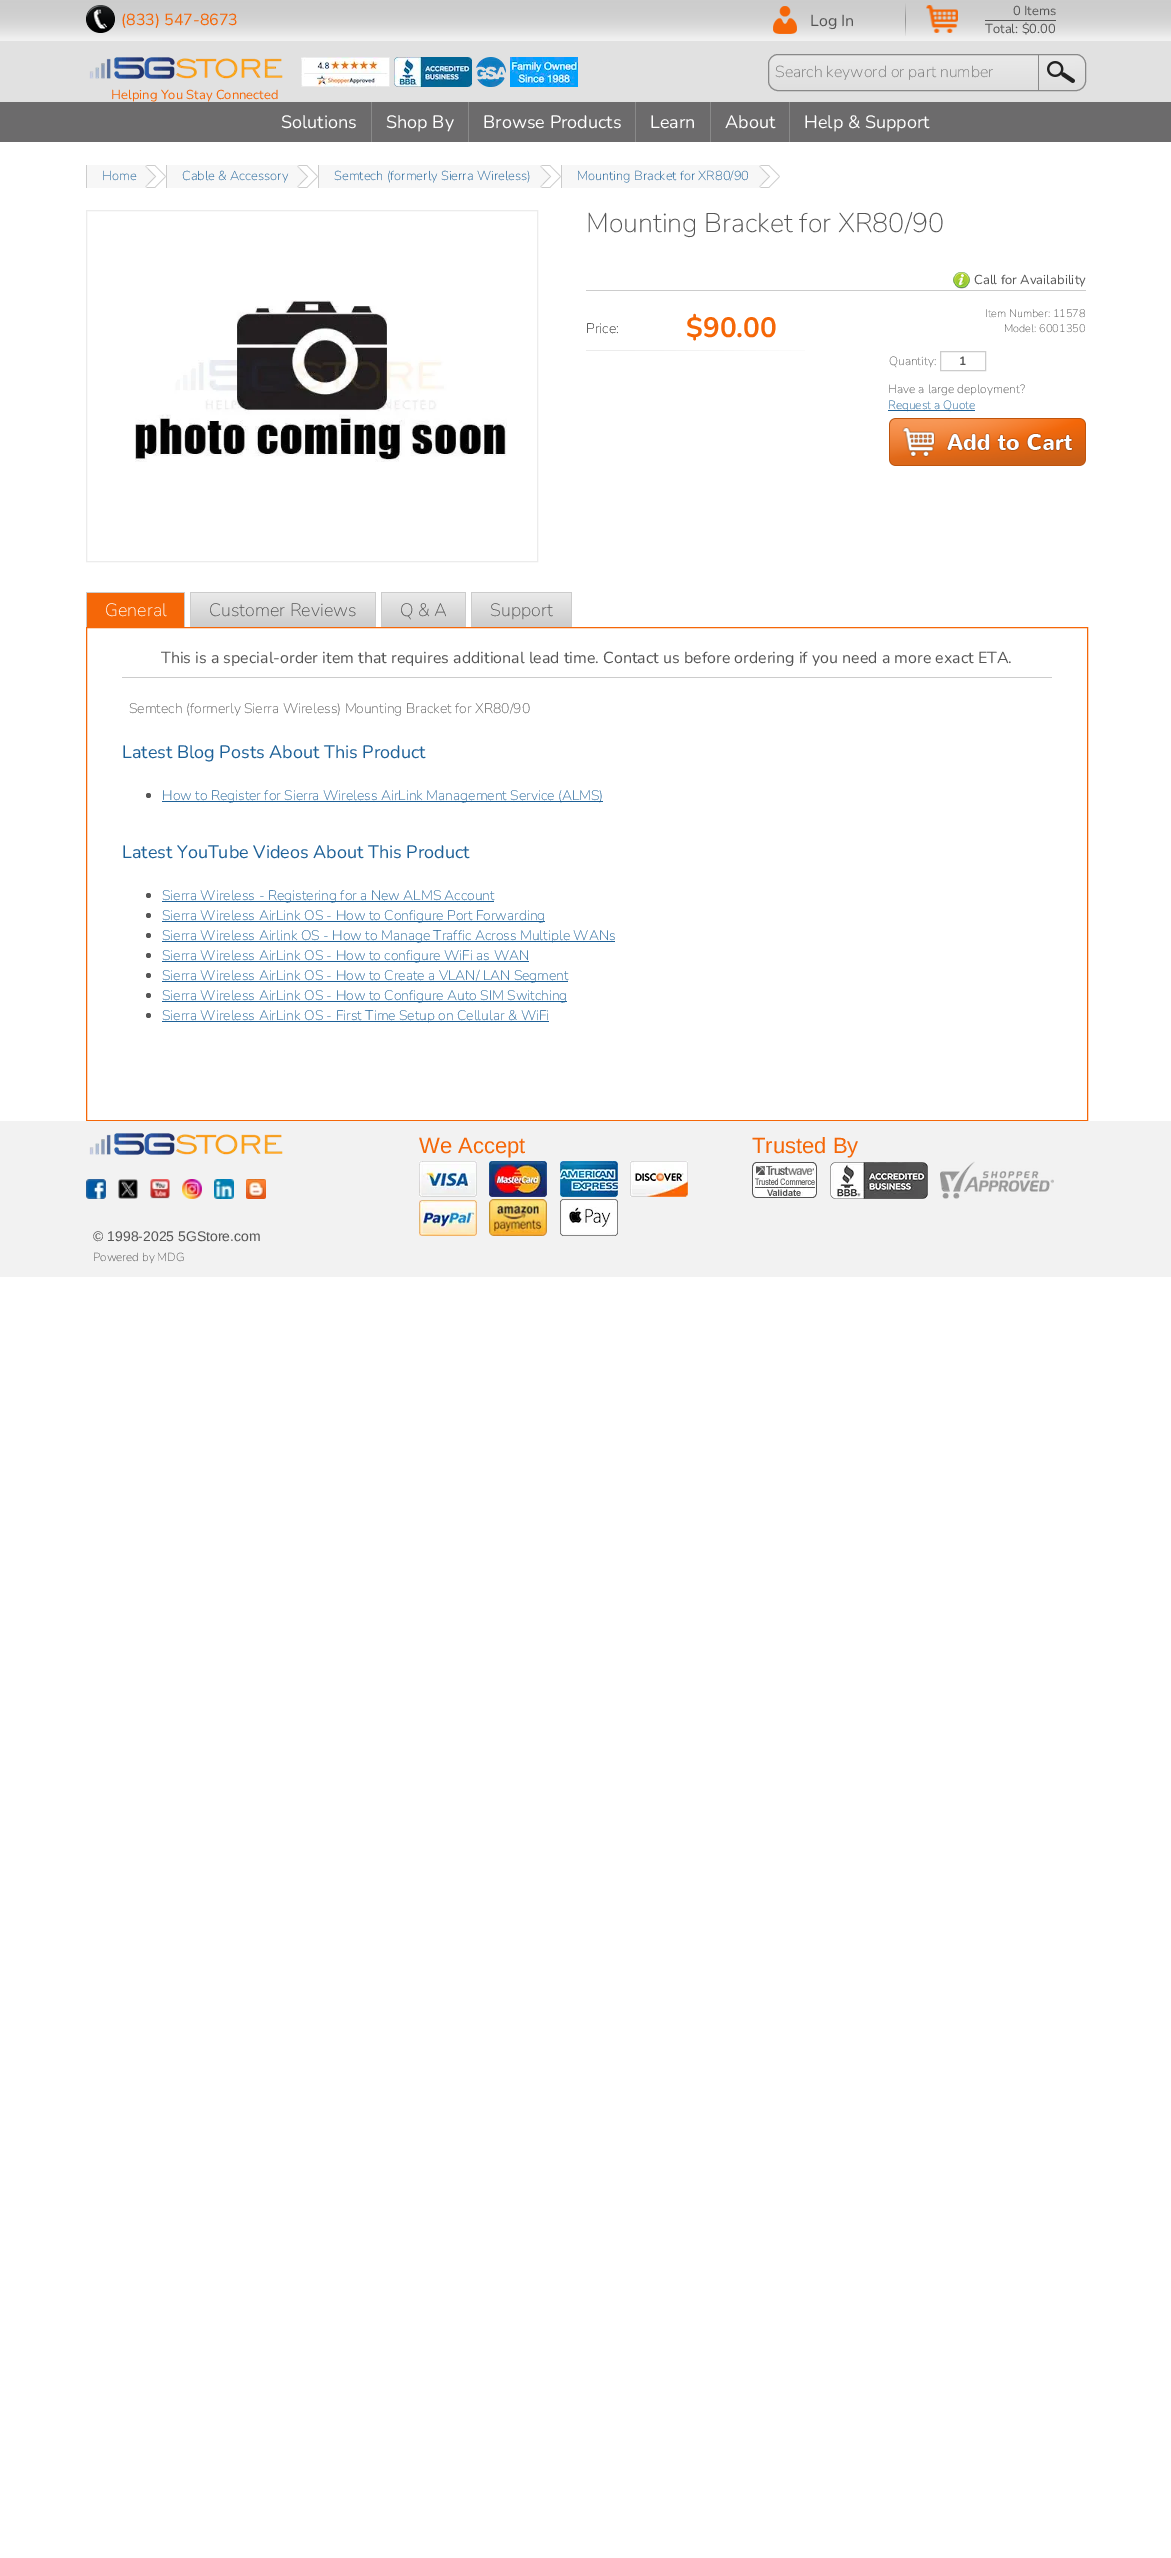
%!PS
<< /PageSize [1171 2558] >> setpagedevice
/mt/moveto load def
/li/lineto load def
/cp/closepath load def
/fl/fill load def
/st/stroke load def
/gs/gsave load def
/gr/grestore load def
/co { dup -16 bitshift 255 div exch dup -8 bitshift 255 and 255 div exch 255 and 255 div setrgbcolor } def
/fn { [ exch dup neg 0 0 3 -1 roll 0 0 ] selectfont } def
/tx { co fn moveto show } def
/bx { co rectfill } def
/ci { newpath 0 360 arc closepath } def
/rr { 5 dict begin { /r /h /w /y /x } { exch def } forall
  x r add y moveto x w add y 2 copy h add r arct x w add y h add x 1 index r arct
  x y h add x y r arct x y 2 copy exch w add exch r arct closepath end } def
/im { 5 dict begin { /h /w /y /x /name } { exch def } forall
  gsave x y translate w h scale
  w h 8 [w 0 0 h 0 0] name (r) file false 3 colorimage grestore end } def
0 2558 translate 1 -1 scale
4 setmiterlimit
0 0 1171 2558 16#FFFFFF bx
0 41 1171 61 16#E1E1E1 bx
(media/1.raw) 0 0 1171 41 im
(media/2.raw) 86 5 29 28 im
(media/3.raw) 773 6 24 28 im
(media/4.raw) 905 3 1 33 im
(media/5.raw) 926 5 32 28 im
985 20 71 1 16#555555 bx
gs
768 54 318 37 10 rr clip newpath
gs 768 55 mt 1086 55 li 1086 90 li 768 90 li cp clip newpath
<< /ShadingType 2 /ColorSpace /DeviceRGB /Coords [927 55 927 90] /Extend [true true] /Function << /FunctionType 2 /Domain [0 1] /C0 [.918 .918 .918] /C1 [.875 .875 .875] /N 1 >> >> shfill gr
gr
16#898989 co
768.5 54.5 317 36 9.5 rr st
1038 54 1 36 16#898989 bx
(media/6.raw) 1047 61 28 22 im
(media/7.raw) 301 57 89 30 im
(media/8.raw) 394 57 78 30 im
(media/9.raw) 476 57 30 30 im
(media/10.raw) 510 57 68 30 im
(media/11.raw) 89 57 194 22 im
0 102 1171 40 16#6C6B6C bx
371 102 1 40 16#898989 bx
468 102 1 40 16#898989 bx
635 102 1 40 16#898989 bx
710 102 1 40 16#898989 bx
789 102 1 40 16#898989 bx
87 165 58 23 16#F7F7F7 bx
86 165 1 23 16#CCCCCC bx
(media/12.raw) 145 165 21 23 im
167 165 130 23 16#F7F7F7 bx
166 165 1 23 16#CCCCCC bx
(media/12.raw) 297 165 21 23 im
319 165 221 23 16#F7F7F7 bx
318 165 1 23 16#CCCCCC bx
(media/12.raw) 540 165 21 23 im
562 165 197 23 16#F7F7F7 bx
561 165 1 23 16#CCCCCC bx
(media/12.raw) 759 165 21 23 im
16#ECECEC co
86.5 210.5 451 351 rectstroke
(media/13.raw) 135 300 372 162 im
(media/14.raw) 953 272 17 17 im
586 290 500 1 16#CCCCCC bx
(media/15.raw) 586 350 219 1 im
940.5 351.5 45 19 rectstroke
888 410 87 1 16#1D6198 bx
(media/16.raw) 889 418 197 48 im
87 593 97 34 16#F56708 bx
86 592 99 1 16#CCCCCC bx
184 592 1 35 16#CCCCCC bx
86 592 1 35 16#CCCCCC bx
gs 190 592 mt 376 592 li 376 593 li 190 593 li cp clip newpath
<< /ShadingType 2 /ColorSpace /DeviceRGB /Coords [283 559 283 593] /Extend [true true] /Function << /FunctionType 2 /Domain [0 1] /C0 [.918 .918 .918] /C1 [.8 .8 .8] /N 1 >> >> shfill gr
gs 191 593 mt 375 593 li 375 627 li 191 627 li cp clip newpath
<< /ShadingType 2 /ColorSpace /DeviceRGB /Coords [283 593 283 627] /Extend [true true] /Function << /FunctionType 2 /Domain [0 1] /C0 [.918 .918 .918] /C1 [.8 .8 .8] /N 1 >> >> shfill gr
375 592 1 35 16#CCCCCC bx
190 592 1 35 16#CCCCCC bx
gs 381 592 mt 466 592 li 466 593 li 381 593 li cp clip newpath
<< /ShadingType 2 /ColorSpace /DeviceRGB /Coords [424 559 424 593] /Extend [true true] /Function << /FunctionType 2 /Domain [0 1] /C0 [.918 .918 .918] /C1 [.8 .8 .8] /N 1 >> >> shfill gr
gs 382 593 mt 465 593 li 465 627 li 382 627 li cp clip newpath
<< /ShadingType 2 /ColorSpace /DeviceRGB /Coords [424 593 424 627] /Extend [true true] /Function << /FunctionType 2 /Domain [0 1] /C0 [.918 .918 .918] /C1 [.8 .8 .8] /N 1 >> >> shfill gr
465 592 1 35 16#CCCCCC bx
381 592 1 35 16#CCCCCC bx
gs 471 592 mt 572 592 li 572 593 li 471 593 li cp clip newpath
<< /ShadingType 2 /ColorSpace /DeviceRGB /Coords [522 559 522 593] /Extend [true true] /Function << /FunctionType 2 /Domain [0 1] /C0 [.918 .918 .918] /C1 [.8 .8 .8] /N 1 >> >> shfill gr
gs 472 593 mt 571 593 li 571 627 li 472 627 li cp clip newpath
<< /ShadingType 2 /ColorSpace /DeviceRGB /Coords [522 593 522 627] /Extend [true true] /Function << /FunctionType 2 /Domain [0 1] /C0 [.918 .918 .918] /C1 [.8 .8 .8] /N 1 >> >> shfill gr
571 592 1 35 16#CCCCCC bx
471 592 1 35 16#CCCCCC bx
16#F56708 co
86.5 627.5 1001 493 rectstroke
122 677 930 1 16#CCCCCC bx
16#555555 co
148.5 795.5 2.5 ci fl
162 801 441 1 16#1D6198 bx
16#555555 co
148.5 895.5 2.5 ci fl
162 901 332 1 16#1D6198 bx
16#555555 co
148.5 915.5 2.5 ci fl
162 921 383 1 16#1D6198 bx
16#555555 co
148.5 935.5 2.5 ci fl
162 941 453 1 16#1D6198 bx
16#555555 co
148.5 955.5 2.5 ci fl
162 961 367 1 16#1D6198 bx
16#555555 co
148.5 975.5 2.5 ci fl
162 981 406 1 16#1D6198 bx
16#555555 co
148.5 995.5 2.5 ci fl
162 1001 405 1 16#1D6198 bx
16#555555 co
148.5 1015.5 2.5 ci fl
162 1021 387 1 16#1D6198 bx
0 1121 1171 156 16#F2F2F2 bx
(media/17.raw) 419 1161 58 36 im
(media/18.raw) 489 1161 58 36 im
(media/19.raw) 560 1161 58 36 im
(media/20.raw) 630 1161 58 36 im
(media/21.raw) 419 1200 58 36 im
(media/22.raw) 489 1199 58 37 im
(media/23.raw) 560 1199 58 37 im
(media/24.raw) 752 1162 65 36 im
(media/25.raw) 830 1162 98 37 im
(media/26.raw) 940 1161 114 38 im
(media/27.raw) 89 1133 194 22 im
(media/28.raw) 86 1179 20 20 im
(media/29.raw) 118 1179 20 20 im
(media/30.raw) 150 1179 20 20 im
(media/31.raw) 182 1179 20 20 im
(media/32.raw) 214 1179 20 20 im
(media/33.raw) 246 1179 20 20 im
(\(833\) 547-8673) 121 25 /Nunito-Regular 16 16#F56708 tx
(Log In) 810 26 /Nunito-Regular 16 16#555555 tx
(0 Items) 1013 15 /Nunito-Regular 13 16#555555 tx
(Total: $0.00) 985 33 /Nunito-Regular 13 16#555555 tx
(Search keyword or part number) 775 77 /Nunito-ExtraLight 16 16#757575 tx
(Helping You Stay Connected) 111 99 /Nunito-Regular 13 16#F56708 tx
(Solutions) 281 128 /Nunito-Regular 18 16#FFFFFF tx
(Shop By) 386 128 /Nunito-Regular 18 16#FFFFFF tx
(Browse Products) 483 128 /Nunito-Regular 18 16#FFFFFF tx
(Learn) 650 128 /Nunito-Regular 18 16#FFFFFF tx
(About) 725 128 /Nunito-Regular 18 16#FFFFFF tx
(Help & Support) 804 128 /Nunito-Regular 18 16#FFFFFF tx
(Home) 102 180 /Nunito-ExtraLight 13 16#1D6198 tx
(Cable & Accessory) 182 180 /Nunito-ExtraLight 13 16#1D6198 tx
(Semtech \(formerly Sierra Wireless\)) 334 180 /Nunito-ExtraLight 13 16#1D6198 tx
(Mounting Bracket for XR80/90) 577 180 /Nunito-ExtraLight 13 16#1D6198 tx
(Mounting Bracket for XR80/90) 586 232 /Nunito-ExtraLight 27 16#555555 tx
(Call for Availability) 974 284 /Nunito-Regular 13 16#555555 tx
(Price:) 586 333 /Nunito-ExtraLight 14 16#222222 tx
($90.00) 686 337 /Nunito-Bold 28 16#F56708 tx
(Item Number: 11578) 985 317 /Nunito-ExtraLight 11 16#555555 tx
(Model: 6001350) 1004 332 /Nunito-ExtraLight 11 16#555555 tx
(Quantity:) 889 365 /Nunito-ExtraLight 12 16#555555 tx
(1) 959 365 /Nunito-Bold 12 16#555555 tx
(Have a large deployment?) 888 393 /Nunito-ExtraLight 12 16#555555 tx
(Request a Quote) 888 409 /Nunito-ExtraLight 12 16#1D6198 tx
(General) 105 616 /Nunito-ExtraLight 18 16#FFFFFF tx
(Customer Reviews) 209 616 /Nunito-ExtraLight 18 16#555555 tx
(Q & A) 400 616 /Nunito-ExtraLight 18 16#555555 tx
(Support) 490 616 /Nunito-ExtraLight 18 16#555555 tx
(This is a special-order item that requires additional lead time. Contact us before ordering if you need a more exact ETA.) 161 663 /Nunito-Regular 16 16#555555 tx
(Semtech \(formerly Sierra Wireless\) Mounting Bracket for XR80/90) 129 713 /Nunito-ExtraLight 14 16#555555 tx
(Latest Blog Posts About This Product) 122 758 /Nunito-Regular 18 16#1D6198 tx
(How to Register for Sierra Wireless AirLink Management Service \(ALMS\)) 162 800 /Nunito-ExtraLight 14 16#1D6198 tx
(Latest YouTube Videos About This Product) 122 858 /Nunito-Regular 18 16#1D6198 tx
(Sierra Wireless - Registering for a New ALMS Account) 162 900 /Nunito-ExtraLight 14 16#1D6198 tx
(Sierra Wireless AirLink OS - How to Configure Port Forwarding) 162 920 /Nunito-ExtraLight 14 16#1D6198 tx
(Sierra Wireless Airlink OS - How to Manage Traffic Across Multiple WANs) 162 940 /Nunito-ExtraLight 14 16#1D6198 tx
(Sierra Wireless AirLink OS - How to configure WiFi as WAN) 162 960 /Nunito-ExtraLight 14 16#1D6198 tx
(Sierra Wireless AirLink OS - How to Create a VLAN/ LAN Segment) 162 980 /Nunito-ExtraLight 14 16#1D6198 tx
(Sierra Wireless AirLink OS - How to Configure Auto SIM Switching) 162 1000 /Nunito-ExtraLight 14 16#1D6198 tx
(Sierra Wireless AirLink OS - First Time Setup on Cellular & WiFi) 162 1020 /Nunito-ExtraLight 14 16#1D6198 tx
(We Accept) 419 1153 /LiberationSans-Regular 22 16#F56708 tx
(Trusted By) 752 1153 /LiberationSans-Regular 22 16#F56708 tx
(© 1998-2025 5GStore.com) 93 1241 /LiberationSans-Regular 14 16#555555 tx
(Powered by MDG) 93 1261 /Nunito-ExtraLight 11.75 16#555555 tx
showpage
